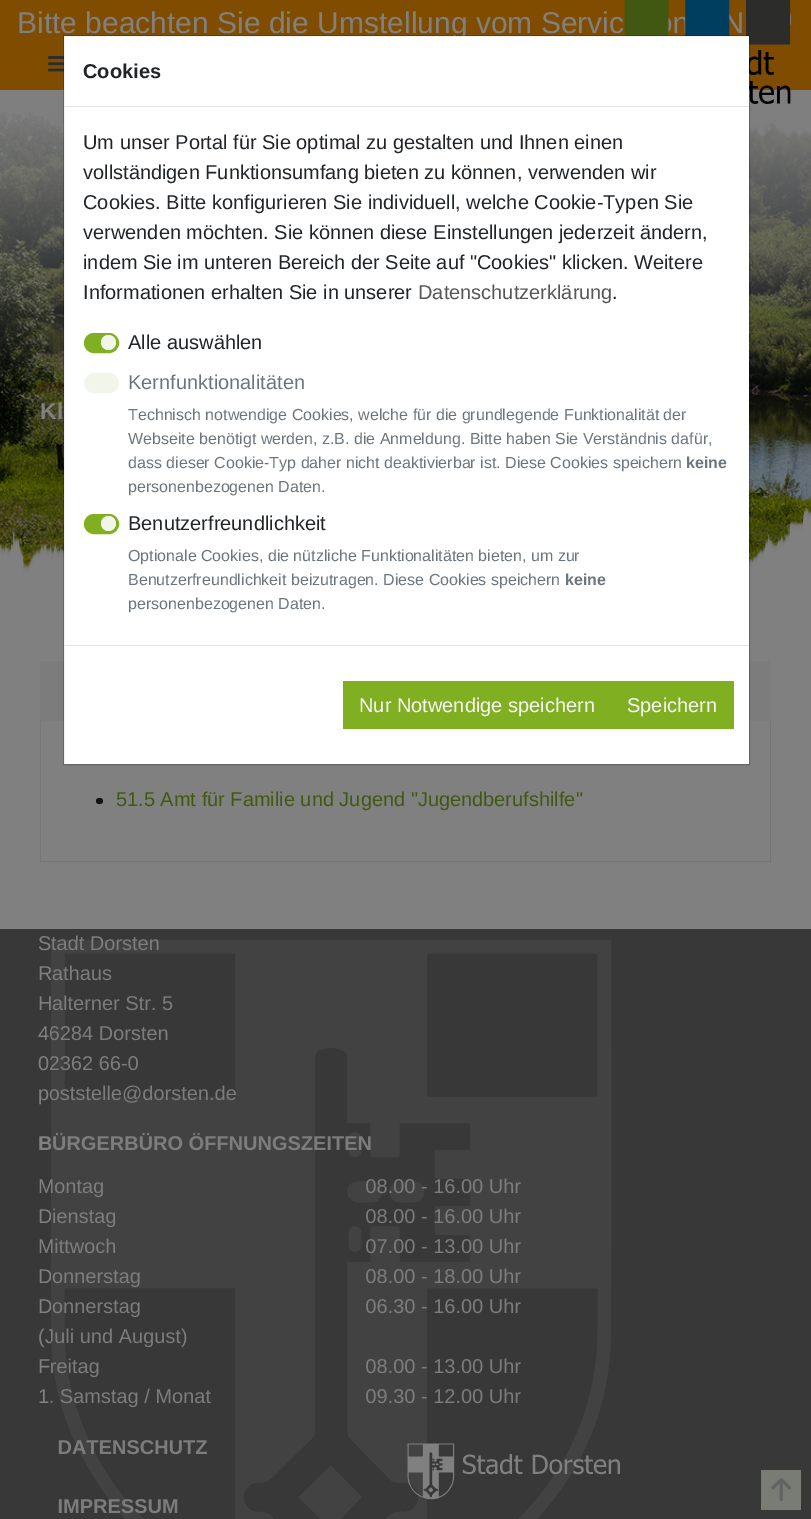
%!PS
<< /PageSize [811 1519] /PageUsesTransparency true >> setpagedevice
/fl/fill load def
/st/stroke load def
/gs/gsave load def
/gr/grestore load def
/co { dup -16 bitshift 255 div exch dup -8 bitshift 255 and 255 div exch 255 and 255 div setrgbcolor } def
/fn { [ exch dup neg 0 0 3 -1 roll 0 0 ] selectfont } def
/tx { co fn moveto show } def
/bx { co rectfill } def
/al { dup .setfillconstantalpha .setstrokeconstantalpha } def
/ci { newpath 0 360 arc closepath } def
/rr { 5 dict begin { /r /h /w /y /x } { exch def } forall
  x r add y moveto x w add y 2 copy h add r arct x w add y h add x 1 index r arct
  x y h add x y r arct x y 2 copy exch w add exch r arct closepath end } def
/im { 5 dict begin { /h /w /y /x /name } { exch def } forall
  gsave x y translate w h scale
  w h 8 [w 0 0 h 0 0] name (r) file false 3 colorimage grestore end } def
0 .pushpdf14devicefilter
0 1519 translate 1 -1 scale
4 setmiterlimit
0 0 811 1519 16#808080 bx
0 0 811 90 16#804C00 bx
(media/1.raw) 48 56 16 16 im
(media/3.raw) 0 90 811 479 im
(media/2.raw) 624 0 167 104 im
(media/4.raw) 0 506 811 84 im
40 661 731 60 16#7C7C7C bx
770 721 1 142 16#757678 bx
40 861 731 1 16#757678 bx
40 721 1 142 16#757678 bx
16#111315 co
96 798 7 6 3 rr fl
0 929 811 590 16#383838 bx
(media/5.raw) 407 1443 213 57 im
761 1470 40 40 16#797B75 bx
(media/6.raw) 771 1478 20 23 im
(Bitte beachten Sie die Umstellung vom Servic) 17 33 /LiberationSans-Regular 30 16#808080 tx
(Kl) 40 419 /LiberationSans-Bold 23 16#808080 tx
(51.5 Amt für Familie und Jugend "Jugendberufshilfe") 116 806 /LiberationSans-Regular 20 16#405811 tx
(Stadt Dorsten) 38 950 /LiberationSans-Regular 20 16#808080 tx
(Rathaus) 38 980 /LiberationSans-Regular 20 16#808080 tx
(Halterner Str. 5) 38 1010 /LiberationSans-Regular 20 16#808080 tx
(46284 Dorsten) 38 1040 /LiberationSans-Regular 20 16#808080 tx
(02362 66-0) 38 1070 /LiberationSans-Regular 20 16#808080 tx
(poststelle@dorsten.de) 38 1100 /LiberationSans-Regular 20 16#808080 tx
(BÜRGERBÜRO ÖFFNUNGSZEITEN) 38 1150 /LiberationSans-Bold 20 16#808080 tx
(Montag) 38 1193 /LiberationSans-Regular 20 16#808080 tx
(08.00 - 16.00 Uhr) 365 1193 /LiberationSans-Regular 20 16#808080 tx
(Dienstag) 38 1223 /LiberationSans-Regular 20 16#808080 tx
(08.00 - 16.00 Uhr) 365 1223 /LiberationSans-Regular 20 16#808080 tx
(Mittwoch) 38 1253 /LiberationSans-Regular 20 16#808080 tx
(07.00 - 13.00 Uhr) 365 1253 /LiberationSans-Regular 20 16#808080 tx
(Donnerstag) 38 1283 /LiberationSans-Regular 20 16#808080 tx
(08.00 - 18.00 Uhr) 365 1283 /LiberationSans-Regular 20 16#808080 tx
(Donnerstag) 38 1313 /LiberationSans-Regular 20 16#808080 tx
(06.30 - 16.00 Uhr) 365 1313 /LiberationSans-Regular 20 16#808080 tx
(\(Juli und August\)) 38 1343 /LiberationSans-Regular 20 16#808080 tx
(Freitag) 38 1373 /LiberationSans-Regular 20 16#808080 tx
(08.00 - 13.00 Uhr) 365 1373 /LiberationSans-Regular 20 16#808080 tx
(1. Samstag / Monat) 38 1403 /LiberationSans-Regular 20 16#808080 tx
(09.30 - 12.00 Uhr) 365 1403 /LiberationSans-Regular 20 16#808080 tx
(DATENSCHUTZ) 58 1454 /LiberationSans-Bold 20 16#808080 tx
(IMPRESSUM) 58 1513 /LiberationSans-Bold 20 16#808080 tx
(media/7.raw) 51 940 561 579 im
64 36 685 728 16#FFFFFF bx
0.2 al
16#000000 co
63.5 35.5 686 729 rectstroke
1 al
64 106 685 1 16#DEE2E6 bx
(Cookies) 83 78 /LiberationSans-Bold 20 16#212529 tx
(Um unser Portal für Sie optimal zu gestalten und Ihnen einen) 83 149 /LiberationSans-Regular 20 16#212529 tx
(vollständigen Funktionsumfang bieten zu können, verwenden wir) 83 179 /LiberationSans-Regular 20 16#212529 tx
(Cookies. Bitte konfigurieren Sie individuell, welche Cookie-Typen Sie) 83 209 /LiberationSans-Regular 20 16#212529 tx
(verwenden möchten. Sie können diese Einstellungen jederzeit ändern,) 83 239 /LiberationSans-Regular 20 16#212529 tx
(indem Sie im unteren Bereich der Seite auf "Cookies" klicken. Weitere) 83 269 /LiberationSans-Regular 20 16#212529 tx
(Informationen erhalten Sie in unserer) 83 299 /LiberationSans-Regular 20 16#212529 tx
(Datenschutzerklärung) 418 299 /LiberationSans-Regular 20 16#575756 tx
(.) 612 299 /LiberationSans-Regular 20 16#212529 tx
16#80B022 co
84.5 333.5 34 19 9.5 rr gs fl gr
st
(Alle auswählen) 128 349 /LiberationSans-Regular 20 16#212529 tx
16#F2F6EA co
108.5 342.5 7.5 ci fl
84.5 373.5 34 19 9.5 rr gs fl gr
st
(Kernfunktionalitäten) 128 389 /LiberationSans-Regular 20 16#6C757D tx
(Technisch notwendige Cookies, welche für die grundlegende Funktionalität der) 128 420 /LiberationSans-Regular 16 16#6C757D tx
(Webseite benötigt werden, z.B. die Anmeldung. Bitte haben Sie Verständnis dafür,) 128 444 /LiberationSans-Regular 16 16#6C757D tx
(dass dieser Cookie-Typ daher nicht deaktivierbar ist. Diese Cookies speichern) 128 468 /LiberationSans-Regular 16 16#6C757D tx
(keine) 686 468 /LiberationSans-Bold 16 16#6C757D tx
(personenbezogenen Daten.) 128 492 /LiberationSans-Regular 16 16#6C757D tx
16#80B022 co
84.5 514.5 34 19 9.5 rr gs fl gr
st
(Benutzerfreundlichkeit) 128 530 /LiberationSans-Regular 20 16#212529 tx
16#F2F6EA co
108.5 523.5 7.5 ci fl
(Optionale Cookies, die nützliche Funktionalitäten bieten, um zur) 128 561 /LiberationSans-Regular 16 16#6C757D tx
(Benutzerfreundlichkeit beizutragen. Diese Cookies speichern) 128 585 /LiberationSans-Regular 16 16#6C757D tx
(keine) 565 585 /LiberationSans-Bold 16 16#6C757D tx
(personenbezogenen Daten.) 128 609 /LiberationSans-Regular 16 16#6C757D tx
64 645 685 1 16#DEE2E6 bx
343 681 391 48 16#80B022 bx
(Nur Notwendige speichern) 359 712 /LiberationSans-Regular 20 16#F8F8F8 tx
(Speichern) 627 712 /LiberationSans-Regular 20 16#F8F8F8 tx
.poppdf14devicefilter showpage
